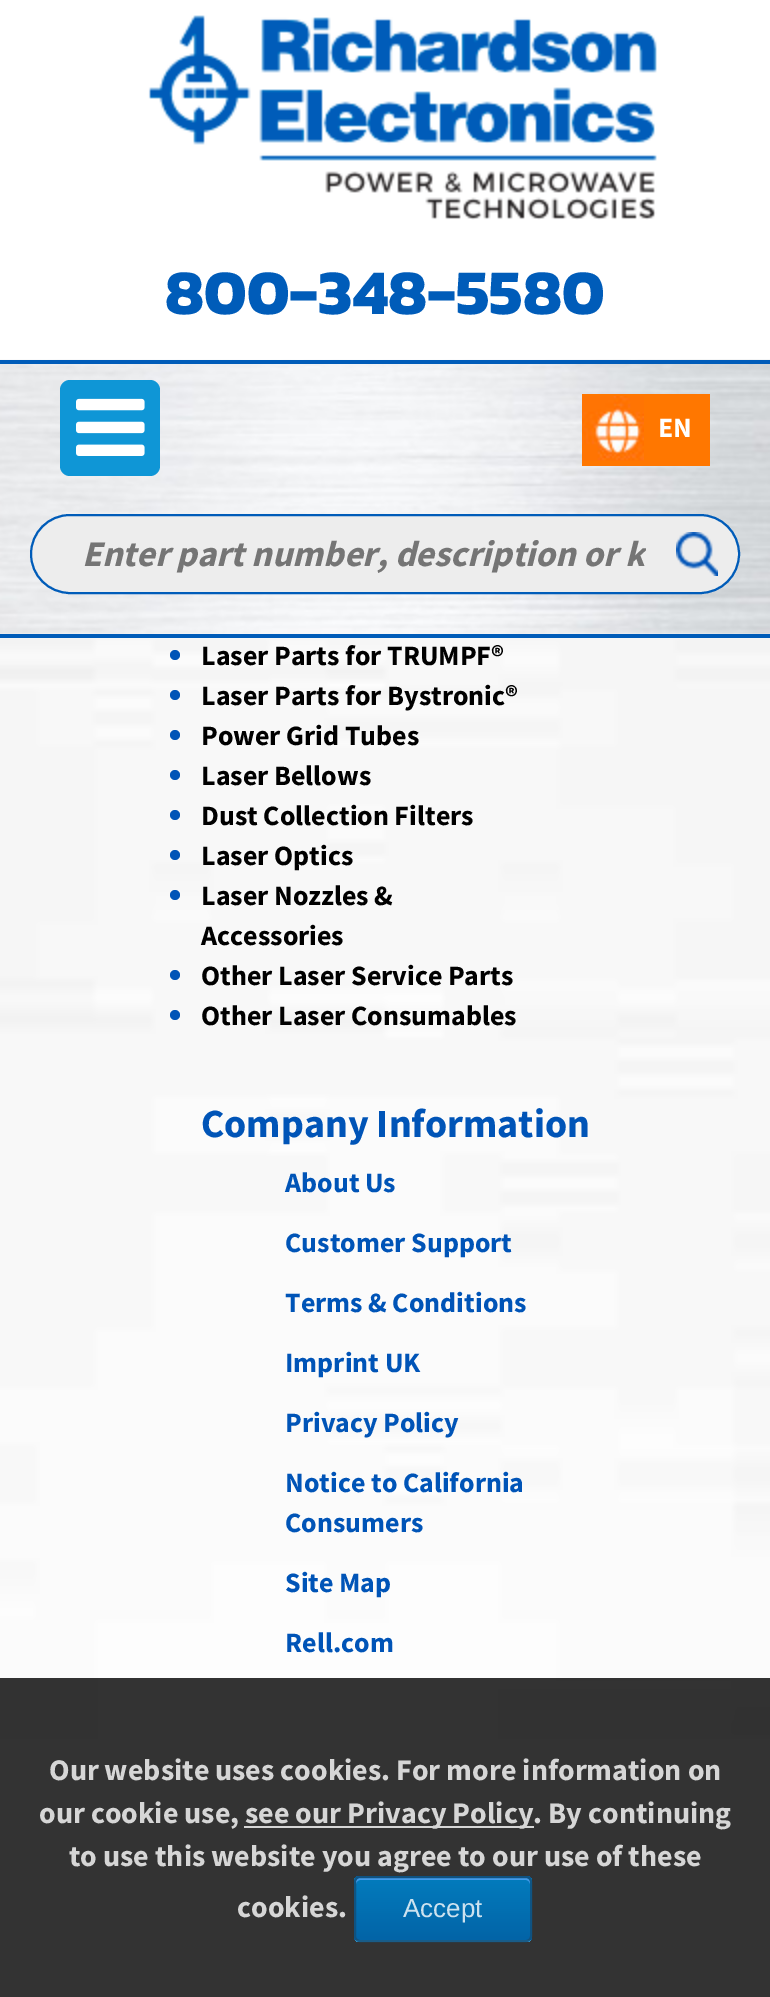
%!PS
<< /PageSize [770 1997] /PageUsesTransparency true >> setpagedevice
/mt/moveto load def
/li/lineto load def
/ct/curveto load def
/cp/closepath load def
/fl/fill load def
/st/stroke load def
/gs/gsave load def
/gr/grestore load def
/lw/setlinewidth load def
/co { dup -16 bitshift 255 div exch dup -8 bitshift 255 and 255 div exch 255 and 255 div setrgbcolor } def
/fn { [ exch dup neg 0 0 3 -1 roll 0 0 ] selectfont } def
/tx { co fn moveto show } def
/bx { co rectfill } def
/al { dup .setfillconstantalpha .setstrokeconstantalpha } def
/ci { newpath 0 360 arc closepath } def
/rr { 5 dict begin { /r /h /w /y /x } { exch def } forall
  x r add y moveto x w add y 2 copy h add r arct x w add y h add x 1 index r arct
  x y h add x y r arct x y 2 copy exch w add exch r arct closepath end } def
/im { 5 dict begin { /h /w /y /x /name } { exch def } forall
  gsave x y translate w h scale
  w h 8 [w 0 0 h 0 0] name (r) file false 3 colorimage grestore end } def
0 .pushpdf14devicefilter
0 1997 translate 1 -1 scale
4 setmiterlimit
0 0 770 1997 16#FFFFFF bx
(media/1.raw) 148 15 509 205 im
(media/6.raw) 0 633 770 1106 im
(media/2.raw) 0 359 770 275 im
0 360 770 4 16#005CB9 bx
0 634 770 4 16#005CB9 bx
16#0F96D6 co
60 380 100 96 10 rr fl
(media/3.raw) 76 398 69 58 im
582 394 128 72 16#FF7700 bx
(media/4.raw) 582 396 62 65 im
16#EDEDED co
31 515 708 78 39 rr gs fl gr
16#005CB9 co
2 lw
st
(media/5.raw) 676 532 42 44 im
16#0054B7 co
175 655 5 ci fl
175 695 5 ci fl
175 735 5 ci fl
175 775 5 ci fl
175 815 5 ci fl
175 855 5 ci fl
175 895 5 ci fl
175 975 5 ci fl
175 1015 5 ci fl
0.8 al
0 1678 770 319 16#000000 bx
244 1826 290 2 16#FFFFFF bx
16#007DC1 co
354 1876 178 66 6 rr fl
gs
354 1876 178 66 6 rr clip newpath
gs 354 1876 mt 532 1876 li 532 1878 li 354 1878 li cp clip newpath
<< /ShadingType 2 /ColorSpace /DeviceRGB /Coords [443 1816 443 1878] /Extend [true true] /Function << /FunctionType 3 /Domain [0 1] /Functions [<< /FunctionType 2 /Domain [0 1] /C0 [0 .49 .757] /C1 [0 .49 .757] /N 1 >> << /FunctionType 2 /Domain [0 1] /C0 [0 .49 .757] /C1 [0 .38 .655] /N 1 >>] /Bounds [.05] /Encode [0 1 0 1] >> >> shfill gr
gs 354 1878 mt 532 1878 li 532 1940 li 354 1940 li cp clip newpath
<< /ShadingType 2 /ColorSpace /DeviceRGB /Coords [443 1878 443 1940] /Extend [true true] /Function << /FunctionType 3 /Domain [0 1] /Functions [<< /FunctionType 2 /Domain [0 1] /C0 [0 .49 .757] /C1 [0 .49 .757] /N 1 >> << /FunctionType 2 /Domain [0 1] /C0 [0 .49 .757] /C1 [0 .38 .655] /N 1 >>] /Bounds [.05] /Encode [0 1 0 1] >> >> shfill gr
1 al
gs 354 1940 mt 532 1940 li 532 1942 li 354 1942 li cp clip newpath
<< /ShadingType 2 /ColorSpace /DeviceRGB /Coords [443 1940 443 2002] /Extend [true true] /Function << /FunctionType 3 /Domain [0 1] /Functions [<< /FunctionType 2 /Domain [0 1] /C0 [.2 .592 .804] /C1 [.2 .592 .804] /N 1 >> << /FunctionType 2 /Domain [0 1] /C0 [.2 .592 .804] /C1 [.2 .506 .725] /N 1 >>] /Bounds [.05] /Encode [0 1 0 1] >> >> shfill gr
gr
1 al
16#439BEB co
360 1880 mt 526 1880 li 528 1880 530 1882 530 1884 ct 530 1882 li 530 1880 528 1878 526 1878 ct 360 1878 li 358 1878 356 1880 356 1882 ct 356 1884 li 356 1882 358 1880 360 1880 ct cp fl
0.8 al
16#124D77 co
355 1877 176 64 5 rr st
1 al
(800-348-5580) 165 314 /Kanit-Bold 64 16#005CB9 tx
(EN) 658 437 /SourceSansPro-Bold 28 16#FFFFFF tx
gs
82 530 564 46 rectclip
(Enter part number, description or k) 82 566 /SourceSansPro-BoldItalic 36 16#757575 tx
gr
(Laser Parts for TRUMPF®) 201 665 /SourceSansPro-Bold 28 16#000000 tx
(Laser Parts for Bystronic®) 201 705 /SourceSansPro-Bold 28 16#000000 tx
(Power Grid Tubes) 201 745 /SourceSansPro-Bold 28 16#000000 tx
(Laser Bellows) 201 785 /SourceSansPro-Bold 28 16#000000 tx
(Dust Collection Filters) 201 825 /SourceSansPro-Bold 28 16#000000 tx
(Laser Optics) 201 865 /SourceSansPro-Bold 28 16#000000 tx
(Laser Nozzles &) 201 905 /SourceSansPro-Bold 28 16#000000 tx
(Accessories) 201 945 /SourceSansPro-Bold 28 16#000000 tx
(Other Laser Service Parts) 201 985 /SourceSansPro-Bold 28 16#000000 tx
(Other Laser Consumables) 201 1025 /SourceSansPro-Bold 28 16#000000 tx
(Company Information) 201 1137 /SourceSansPro-Bold 40 16#0054B7 tx
(About Us) 285 1192 /SourceSansPro-Bold 28 16#0054B7 tx
(Customer Support) 285 1252 /SourceSansPro-Bold 28 16#0054B7 tx
(Terms & Conditions) 285 1312 /SourceSansPro-Bold 28 16#0054B7 tx
(Imprint UK) 285 1372 /SourceSansPro-Bold 28 16#0054B7 tx
(Privacy Policy) 285 1432 /SourceSansPro-Bold 28 16#0054B7 tx
(Notice to California) 285 1492 /SourceSansPro-Bold 28 16#0054B7 tx
(Consumers) 285 1532 /SourceSansPro-Bold 28 16#0054B7 tx
(Site Map) 285 1592 /SourceSansPro-Bold 28 16#0054B7 tx
(Rell.com) 285 1652 /SourceSansPro-Bold 28 16#0054B7 tx
(Our website uses cookies. For more information on) 49 1780 /SourceSansPro-Bold 30 16#D6D6D6 tx
(our cookie use,) 39 1823 /SourceSansPro-Bold 30 16#D6D6D6 tx
(see our Privacy Policy. By continuing) 245 1823 /SourceSansPro-Bold 30 16#D6D6D6 tx
(to use this website you agree to our use of these) 69 1866 /SourceSansPro-Bold 30 16#D6D6D6 tx
(cookies.) 237 1917 /SourceSansPro-Bold 30 16#D6D6D6 tx
(Accept) 403 1917 /LiberationSans-Regular 26 16#CCE2EF tx
.poppdf14devicefilter showpage
